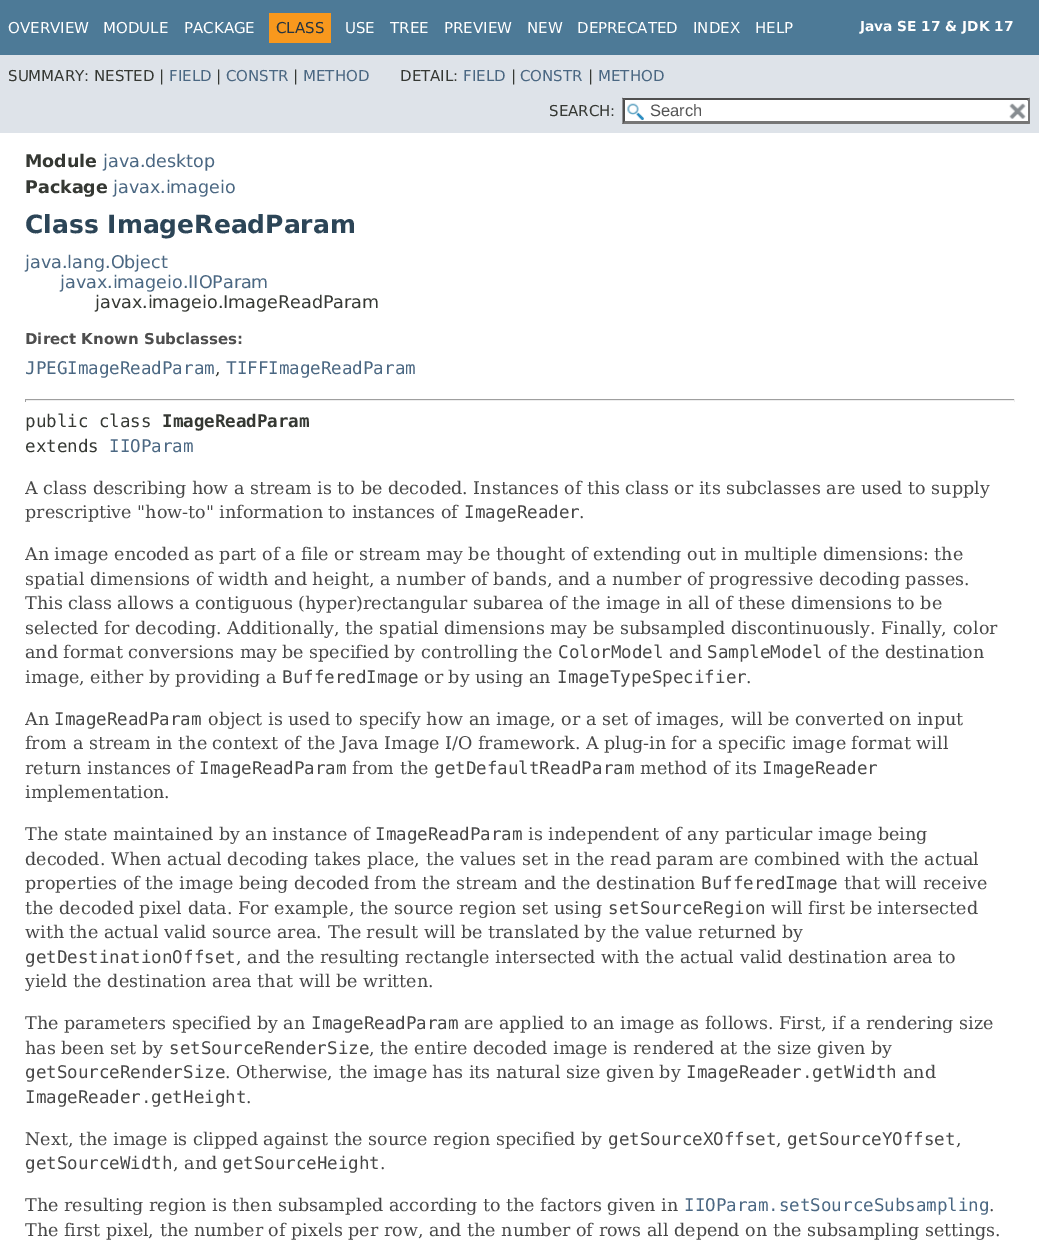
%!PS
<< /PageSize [1039 1252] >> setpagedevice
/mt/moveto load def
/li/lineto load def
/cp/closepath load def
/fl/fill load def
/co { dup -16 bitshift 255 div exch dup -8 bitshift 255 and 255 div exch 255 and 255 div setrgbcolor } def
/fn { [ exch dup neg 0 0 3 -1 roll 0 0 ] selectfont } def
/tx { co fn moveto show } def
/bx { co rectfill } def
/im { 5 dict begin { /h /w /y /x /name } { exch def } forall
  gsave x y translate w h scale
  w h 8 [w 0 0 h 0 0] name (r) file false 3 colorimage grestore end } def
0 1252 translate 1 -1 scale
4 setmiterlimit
0 0 1039 1252 16#FFFFFF bx
0 0 1039 55 16#4D7A97 bx
269 13 62 30 16#F8981D bx
0 55 1039 78 16#DEE3E9 bx
623 98 407 26 16#FFFFFF bx
(media/1.raw) 627 103 17 17 im
16#4F4F4F co
622 98 mt 1030 98 li 1028 100 li 625 100 li cp fl
16#767676 co
1030 97.5 mt 1030 124 li 1027.5 121 li 1027.5 100 li cp fl
1030 124 mt 622 124 li 625 121 li 1028 121 li cp fl
16#4F4F4F co
622.5 124 mt 622.5 97.5 li 625 100 li 625 121 li cp fl
1027 101 1 20 16#FFFFFF bx
(media/2.raw) 1009 103 17 16 im
25 399 990 1 16#9F9F9F bx
1014 399 1 3 16#EEEEEE bx
25 400 990 1 16#EEEEEE bx
25 399 1 3 16#9F9F9F bx
(OVERVIEW) 8 33 /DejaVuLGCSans-Regular 15 16#FFFFFF tx
(MODULE) 103 33 /DejaVuLGCSans-Regular 15 16#FFFFFF tx
(PACKAGE) 184 33 /DejaVuLGCSans-Regular 15 16#FFFFFF tx
(CLASS) 276 33 /DejaVuLGCSans-Regular 15 16#253441 tx
(USE) 345 33 /DejaVuLGCSans-Regular 15 16#FFFFFF tx
(TREE) 390 33 /DejaVuLGCSans-Regular 15 16#FFFFFF tx
(PREVIEW) 444 33 /DejaVuLGCSans-Regular 15 16#FFFFFF tx
(NEW) 527 33 /DejaVuLGCSans-Regular 15 16#FFFFFF tx
(DEPRECATED) 577 33 /DejaVuLGCSans-Regular 15 16#FFFFFF tx
(INDEX) 693 33 /DejaVuLGCSans-Regular 15 16#FFFFFF tx
(HELP) 755 33 /DejaVuLGCSans-Regular 15 16#FFFFFF tx
(Java SE 17 & JDK 17) 860 31 /DejaVuLGCSans-Bold 13.75 16#FFFFFF tx
(SUMMARY: NESTED |) 8 81 /DejaVuLGCSans-Regular 15 16#353833 tx
(FIELD) 169 81 /DejaVuLGCSans-Regular 15 16#4A6782 tx
(|) 216 81 /DejaVuLGCSans-Regular 15 16#353833 tx
(CONSTR) 226 81 /DejaVuLGCSans-Regular 15 16#4A6782 tx
(|) 293 81 /DejaVuLGCSans-Regular 15 16#353833 tx
(METHOD) 303 81 /DejaVuLGCSans-Regular 15 16#4A6782 tx
(DETAIL:) 400 81 /DejaVuLGCSans-Regular 15 16#353833 tx
(FIELD) 463 81 /DejaVuLGCSans-Regular 15 16#4A6782 tx
(|) 511 81 /DejaVuLGCSans-Regular 15 16#353833 tx
(CONSTR) 520 81 /DejaVuLGCSans-Regular 15 16#4A6782 tx
(|) 588 81 /DejaVuLGCSans-Regular 15 16#353833 tx
(METHOD) 598 81 /DejaVuLGCSans-Regular 15 16#4A6782 tx
(SEARCH:) 549 116 /DejaVuLGCSans-Regular 15 16#353833 tx
(Search) 650 116 /LiberationSans-Regular 16.5 16#545454 tx
(Module) 25 167 /DejaVuLGCSans-Bold 17.5 16#353833 tx
(java.desktop) 103 167 /DejaVuLGCSans-Regular 17.5 16#4A6782 tx
(Package) 25 193 /DejaVuLGCSans-Bold 17.5 16#353833 tx
(javax.imageio) 113 193 /DejaVuLGCSans-Regular 17.5 16#4A6782 tx
(Class ImageReadParam) 25 233 /DejaVuLGCSans-Bold 25 16#2C4557 tx
(java.lang.Object) 25 268 /DejaVuLGCSans-Regular 17.5 16#4A6782 tx
(javax.imageio.IIOParam) 60 288 /DejaVuLGCSans-Regular 17.5 16#4A6782 tx
(javax.imageio.ImageReadParam) 95 308 /DejaVuLGCSans-Regular 17.5 16#353833 tx
(Direct Known Subclasses:) 25 344 /DejaVuLGCSans-Bold 15 16#4E4E4E tx
(JPEGImageReadParam) 25 374 /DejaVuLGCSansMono-Regular 17.5 16#4A6782 tx
(,) 215 374 /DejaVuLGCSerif-Regular 17.5 16#353833 tx
(TIFFImageReadParam) 226 374 /DejaVuLGCSansMono-Regular 17.5 16#4A6782 tx
(public class) 25 427 /DejaVuLGCSansMono-Regular 17.5 16#353833 tx
(ImageReadParam) 162 427 /DejaVuLGCSansMono-Bold 17.5 16#353833 tx
(extends) 25 452 /DejaVuLGCSansMono-Regular 17.5 16#353833 tx
(IIOParam) 109 452 /DejaVuLGCSansMono-Regular 17.5 16#4A6782 tx
(A class describing how a stream is to be decoded. Instances of this class or its subclasses are used to supply) 25 494 /DejaVuLGCSerif-Regular 17.5 16#474747 tx
(prescriptive "how-to" information to instances of) 25 518 /DejaVuLGCSerif-Regular 17.5 16#474747 tx
(ImageReader) 464 518 /DejaVuLGCSansMono-Regular 17.5 16#474747 tx
(.) 579 518 /DejaVuLGCSerif-Regular 17.5 16#474747 tx
(An image encoded as part of a file or stream may be thought of extending out in multiple dimensions: the) 25 560 /DejaVuLGCSerif-Regular 17.5 16#474747 tx
(spatial dimensions of width and height, a number of bands, and a number of progressive decoding passes.) 25 585 /DejaVuLGCSerif-Regular 17.5 16#474747 tx
(This class allows a contiguous \(hyper\)rectangular subarea of the image in all of these dimensions to be) 25 609 /DejaVuLGCSerif-Regular 17.5 16#474747 tx
(selected for decoding. Additionally, the spatial dimensions may be subsampled discontinuously. Finally, color) 25 634 /DejaVuLGCSerif-Regular 17.5 16#474747 tx
(and format conversions may be specified by controlling the) 25 658 /DejaVuLGCSerif-Regular 17.5 16#474747 tx
(ColorModel) 558 658 /DejaVuLGCSansMono-Regular 17.5 16#474747 tx
(and) 669 658 /DejaVuLGCSerif-Regular 17.5 16#474747 tx
(SampleModel) 707 658 /DejaVuLGCSansMono-Regular 17.5 16#474747 tx
(of the destination) 828 658 /DejaVuLGCSerif-Regular 17.5 16#474747 tx
(image, either by providing a) 25 683 /DejaVuLGCSerif-Regular 17.5 16#474747 tx
(BufferedImage) 282 683 /DejaVuLGCSansMono-Regular 17.5 16#474747 tx
(or by using an) 424 683 /DejaVuLGCSerif-Regular 17.5 16#474747 tx
(ImageTypeSpecifier) 557 683 /DejaVuLGCSansMono-Regular 17.5 16#474747 tx
(.) 746 683 /DejaVuLGCSerif-Regular 17.5 16#474747 tx
(An) 25 725 /DejaVuLGCSerif-Regular 17.5 16#474747 tx
(ImageReadParam) 54 725 /DejaVuLGCSansMono-Regular 17.5 16#474747 tx
(object is used to specify how an image, or a set of images, will be converted on input) 208 725 /DejaVuLGCSerif-Regular 17.5 16#474747 tx
(from a stream in the context of the Java Image I/O framework. A plug-in for a specific image format will) 25 749 /DejaVuLGCSerif-Regular 17.5 16#474747 tx
(return instances of) 25 774 /DejaVuLGCSerif-Regular 17.5 16#474747 tx
(ImageReadParam) 199 774 /DejaVuLGCSansMono-Regular 17.5 16#474747 tx
(from the) 352 774 /DejaVuLGCSerif-Regular 17.5 16#474747 tx
(getDefaultReadParam) 434 774 /DejaVuLGCSansMono-Regular 17.5 16#474747 tx
(method of its) 640 774 /DejaVuLGCSerif-Regular 17.5 16#474747 tx
(ImageReader) 762 774 /DejaVuLGCSansMono-Regular 17.5 16#474747 tx
(implementation.) 25 798 /DejaVuLGCSerif-Regular 17.5 16#474747 tx
(The state maintained by an instance of) 25 840 /DejaVuLGCSerif-Regular 17.5 16#474747 tx
(ImageReadParam) 375 840 /DejaVuLGCSansMono-Regular 17.5 16#474747 tx
(is independent of any particular image being) 528 840 /DejaVuLGCSerif-Regular 17.5 16#474747 tx
(decoded. When actual decoding takes place, the values set in the read param are combined with the actual) 25 865 /DejaVuLGCSerif-Regular 17.5 16#474747 tx
(properties of the image being decoded from the stream and the destination) 25 889 /DejaVuLGCSerif-Regular 17.5 16#474747 tx
(BufferedImage) 701 889 /DejaVuLGCSansMono-Regular 17.5 16#474747 tx
(that will receive) 844 889 /DejaVuLGCSerif-Regular 17.5 16#474747 tx
(the decoded pixel data. For example, the source region set using) 25 914 /DejaVuLGCSerif-Regular 17.5 16#474747 tx
(setSourceRegion) 608 914 /DejaVuLGCSansMono-Regular 17.5 16#474747 tx
(will first be intersected) 771 914 /DejaVuLGCSerif-Regular 17.5 16#474747 tx
(with the actual valid source area. The result will be translated by the value returned by) 25 938 /DejaVuLGCSerif-Regular 17.5 16#474747 tx
(getDestinationOffset) 25 963 /DejaVuLGCSansMono-Regular 17.5 16#474747 tx
(, and the resulting rectangle intersected with the actual valid destination area to) 236 963 /DejaVuLGCSerif-Regular 17.5 16#474747 tx
(yield the destination area that will be written.) 25 987 /DejaVuLGCSerif-Regular 17.5 16#474747 tx
(The parameters specified by an) 25 1029 /DejaVuLGCSerif-Regular 17.5 16#474747 tx
(ImageReadParam) 311 1029 /DejaVuLGCSansMono-Regular 17.5 16#474747 tx
(are applied to an image as follows. First, if a rendering size) 464 1029 /DejaVuLGCSerif-Regular 17.5 16#474747 tx
(has been set by) 25 1054 /DejaVuLGCSerif-Regular 17.5 16#474747 tx
(setSourceRenderSize) 169 1054 /DejaVuLGCSansMono-Regular 17.5 16#474747 tx
(, the entire decoded image is rendered at the size given by) 369 1054 /DejaVuLGCSerif-Regular 17.5 16#474747 tx
(getSourceRenderSize) 25 1078 /DejaVuLGCSansMono-Regular 17.5 16#474747 tx
(. Otherwise, the image has its natural size given by) 225 1078 /DejaVuLGCSerif-Regular 17.5 16#474747 tx
(ImageReader.getWidth) 686 1078 /DejaVuLGCSansMono-Regular 17.5 16#474747 tx
(and) 903 1078 /DejaVuLGCSerif-Regular 17.5 16#474747 tx
(ImageReader.getHeight) 25 1103 /DejaVuLGCSansMono-Regular 17.5 16#474747 tx
(.) 246 1103 /DejaVuLGCSerif-Regular 17.5 16#474747 tx
(Next, the image is clipped against the source region specified by) 25 1145 /DejaVuLGCSerif-Regular 17.5 16#474747 tx
(getSourceXOffset) 608 1145 /DejaVuLGCSansMono-Regular 17.5 16#474747 tx
(,) 776 1145 /DejaVuLGCSerif-Regular 17.5 16#474747 tx
(getSourceYOffset) 787 1145 /DejaVuLGCSansMono-Regular 17.5 16#474747 tx
(,) 956 1145 /DejaVuLGCSerif-Regular 17.5 16#474747 tx
(getSourceWidth) 25 1169 /DejaVuLGCSansMono-Regular 17.5 16#474747 tx
(, and) 173 1169 /DejaVuLGCSerif-Regular 17.5 16#474747 tx
(getSourceHeight) 222 1169 /DejaVuLGCSansMono-Regular 17.5 16#474747 tx
(.) 380 1169 /DejaVuLGCSerif-Regular 17.5 16#474747 tx
(The resulting region is then subsampled according to the factors given in) 25 1211 /DejaVuLGCSerif-Regular 17.5 16#474747 tx
(IIOParam.setSourceSubsampling) 684 1211 /DejaVuLGCSansMono-Regular 17.5 16#4A6782 tx
(.) 989 1211 /DejaVuLGCSerif-Regular 17.5 16#474747 tx
(The first pixel, the number of pixels per row, and the number of rows all depend on the subsampling settings.) 25 1236 /DejaVuLGCSerif-Regular 17.5 16#474747 tx
showpage
